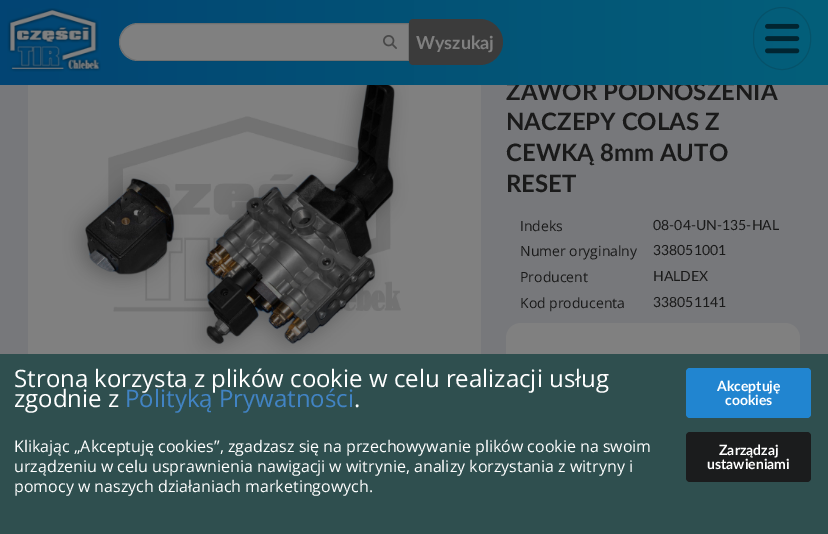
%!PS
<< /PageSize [828 534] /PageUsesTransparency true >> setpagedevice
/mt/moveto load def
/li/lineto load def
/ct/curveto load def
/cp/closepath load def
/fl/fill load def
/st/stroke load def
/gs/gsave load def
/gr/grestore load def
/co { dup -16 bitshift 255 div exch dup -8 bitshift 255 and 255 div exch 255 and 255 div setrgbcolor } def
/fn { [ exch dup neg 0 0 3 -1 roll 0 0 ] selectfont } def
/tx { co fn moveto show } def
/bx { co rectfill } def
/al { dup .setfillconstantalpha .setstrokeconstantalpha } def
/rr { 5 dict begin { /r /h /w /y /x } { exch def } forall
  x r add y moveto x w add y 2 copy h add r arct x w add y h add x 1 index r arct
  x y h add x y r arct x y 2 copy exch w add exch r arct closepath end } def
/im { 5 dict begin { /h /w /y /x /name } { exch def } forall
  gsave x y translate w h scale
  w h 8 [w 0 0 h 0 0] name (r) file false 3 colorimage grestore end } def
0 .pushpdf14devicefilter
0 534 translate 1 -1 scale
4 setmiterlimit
0 0 828 534 16#77787B bx
(media/4.raw) 28 85 453 269 im
16#808080 co
506 323 294 189 15 rr fl
0 354 828 180 16#2F4F4F bx
16#2185D0 co
686 368 125 50 4 rr fl
16#1B1C1D co
686 432 125 50 4 rr fl
(ZAWÓR PODNOSZENIA) 506 100 /Lato-Bold 24 16#1A1A1A tx
gs 0 0 mt 828 0 li 828 85 li 0 85 li cp clip newpath
<< /ShadingType 2 /ColorSpace /DeviceRGB /Coords [0 43 828 42] /Extend [true true] /Function << /FunctionType 2 /Domain [0 1] /C0 [.008 .267 .451] /C1 [.016 .373 .478] /N 1 >> >> shfill gr
0.15 al
16#111213 co
753.5 7.5 57 62 28.5 rr st
1 al
(media/3.raw) 765 23 35 31 im
16#808080 co
138 23 mt 408 23 li 408.5 23 409 23.5 409 24 ct 409 60 li 409 60.5 408.5 61 408 61 ct 138 61 li 127.5 61 119 52.5 119 42 ct 119 31.5 127.5 23 138 23 ct cp fl
0.15 al
16#111213 co
138 23.5 mt 408 23.5 li 408.5 23.5 408.5 23.5 408.5 24 ct 408.5 60 li 408.5 60.5 408.5 60.5 408 60.5 ct 138 60.5 li 128 60.5 119.5 52 119.5 42 ct 119.5 32 128 23.5 138 23.5 ct cp st
1 al
(media/2.raw) 383 35 14 14 im
16#3B3B3B co
413 19 mt 480 19 li 492.5 19 503 29.5 503 42 ct 503 54.5 492.5 65 480 65 ct 413 65 li 411 65 409 63 409 61 ct 409 23 li 409 21 411 19 413 19 ct cp fl
(Wyszukaj) 416 49 /Lato-Bold 18 16#808080 tx
(media/1.raw) 7 8 94 64 im
(NACZEPY COLAS Z) 506 130 /Lato-Bold 24 16#1A1A1A tx
(CEWKĄ 8mm AUTO) 506 161 /Lato-Bold 24 16#1A1A1A tx
(RESET) 506 192 /Lato-Bold 24 16#1A1A1A tx
(Indeks) 520 231 /OpenSans-Regular 14 16#1A1A1A tx
(08-04-UN-135-HAL) 653 230 /Lato-Regular 14 16#1A1A1A tx
(Numer oryginalny) 520 256 /OpenSans-Regular 14 16#1A1A1A tx
(338051001) 653 255 /Lato-Regular 14 16#1A1A1A tx
(Producent) 520 282 /OpenSans-Regular 14 16#1A1A1A tx
(HALDEX) 653 281 /Lato-Regular 14 16#1A1A1A tx
(Kod producenta) 520 308 /OpenSans-Regular 14 16#1A1A1A tx
(338051141) 653 307 /Lato-Regular 14 16#1A1A1A tx
(Strona korzysta z plików cookie w celu realizacji usług) 14 387 /OpenSans-Regular 24 16#FFFFFF tx
(zgodnie z) 14 407 /OpenSans-Regular 24 16#FFFFFF tx
(Polityką Prywatności) 125 407 /OpenSans-Regular 24 16#4183C4 tx
(.) 354 407 /OpenSans-Regular 24 16#FFFFFF tx
(Klikając „Akceptuję cookies”, zgadzasz się na przechowywanie plików cookie na swoim) 14 452 /OpenSans-Regular 16 16#FFFFFF tx
(urządzeniu w celu usprawnienia nawigacji w witrynie, analizy korzystania z witryny i) 14 472 /OpenSans-Regular 16 16#FFFFFF tx
(pomocy w naszych działaniach marketingowych.) 14 492 /OpenSans-Regular 16 16#FFFFFF tx
(Akceptuję) 717 391 /Lato-Bold 14 16#FFFFFF tx
(cookies) 725 405 /Lato-Bold 14 16#FFFFFF tx
(Zarządzaj) 719 455 /Lato-Bold 14 16#FFFFFF tx
(ustawieniami) 707 469 /Lato-Bold 14 16#FFFFFF tx
.poppdf14devicefilter showpage
